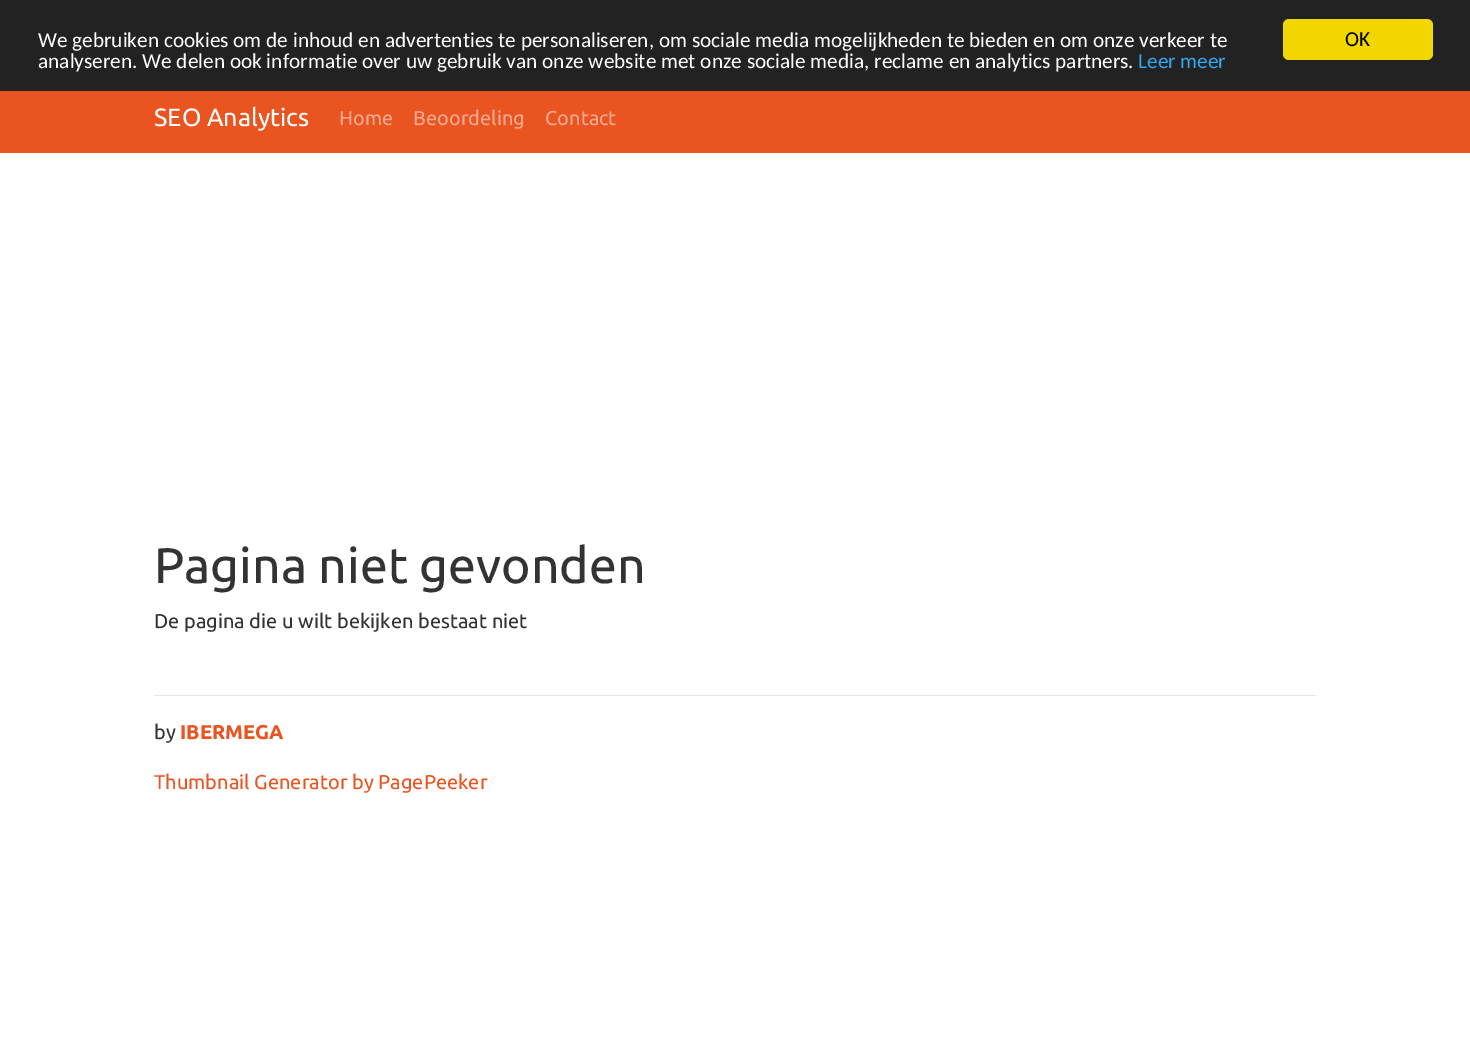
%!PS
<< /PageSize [1470 1052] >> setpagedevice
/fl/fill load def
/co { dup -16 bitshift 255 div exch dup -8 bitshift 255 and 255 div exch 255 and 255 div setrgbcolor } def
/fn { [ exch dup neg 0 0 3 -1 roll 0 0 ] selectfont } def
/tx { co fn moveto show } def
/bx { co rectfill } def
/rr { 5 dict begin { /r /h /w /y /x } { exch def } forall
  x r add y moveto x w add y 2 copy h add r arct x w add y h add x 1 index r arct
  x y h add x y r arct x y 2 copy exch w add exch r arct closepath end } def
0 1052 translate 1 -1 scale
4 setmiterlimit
0 0 1470 1052 16#FFFFFF bx
0 0 1470 91 16#222222 bx
16#F1D600 co
1283 19 150 41 6 rr fl
0 91 1470 62 16#E95420 bx
154 695 1162 1 16#E6E6E6 bx
(We gebruiken cookies om de inhoud en advertenties te personaliseren, om sociale media mogelijkheden te bieden en om onze verkeer te) 38 47 /Carlito-Regular 21.25 16#FFFFFF tx
(analyseren. We delen ook informatie over uw gebruik van onze website met onze sociale media, reclame en analytics partners.) 38 68 /Carlito-Regular 21.25 16#FFFFFF tx
(Leer meer) 1138 68 /Carlito-Regular 21.25 16#31A8F0 tx
(OK) 1345 46 /Carlito-Regular 21.25 16#000000 tx
(SEO Analytics) 154 126 /Ubuntu-Regular 25 16#FFFFFF tx
(Home) 339 125 /Ubuntu-Regular 20 16#F4AA90 tx
(Beoordeling) 413 125 /Ubuntu-Regular 20 16#F4AA90 tx
(Contact) 545 125 /Ubuntu-Regular 20 16#F4AA90 tx
(Pagina niet gevonden) 154 583 /Ubuntu-Regular 50 16#333333 tx
(De pagina die u wilt bekijken bestaat niet) 154 628 /Ubuntu-Regular 20 16#333333 tx
(by) 154 739 /Ubuntu-Regular 20 16#333333 tx
(IBERMEGA) 180 739 /Ubuntu-Bold 20 16#E95420 tx
(Thumbnail Generator by PagePeeker) 154 789 /Ubuntu-Regular 20 16#E95420 tx
showpage
